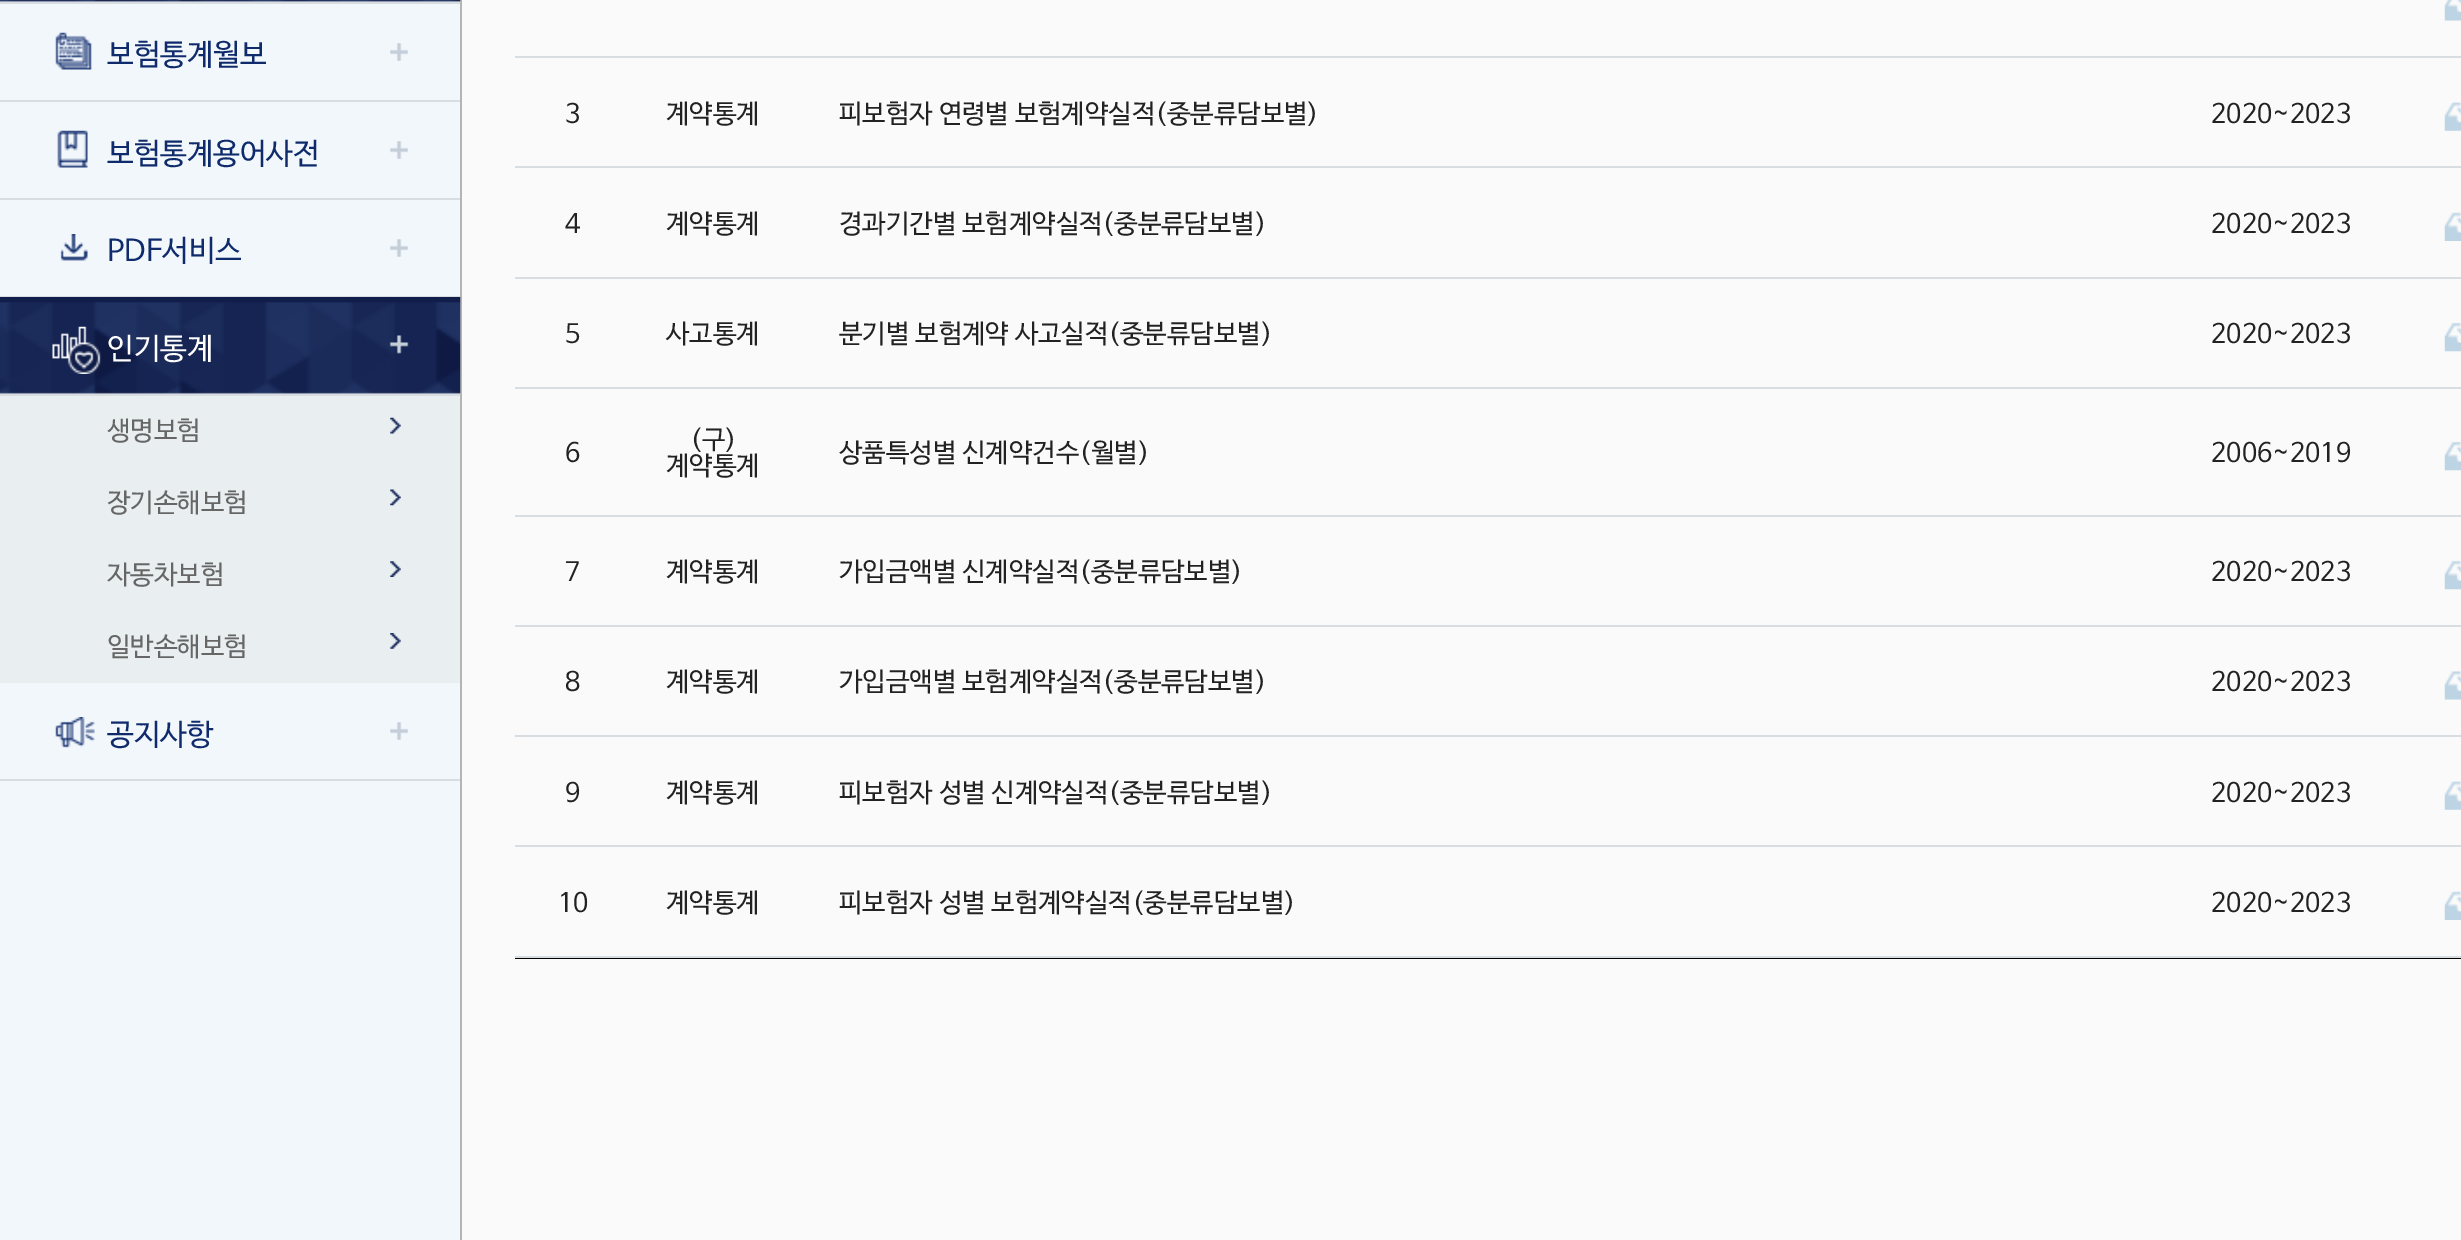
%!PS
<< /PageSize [2461 1240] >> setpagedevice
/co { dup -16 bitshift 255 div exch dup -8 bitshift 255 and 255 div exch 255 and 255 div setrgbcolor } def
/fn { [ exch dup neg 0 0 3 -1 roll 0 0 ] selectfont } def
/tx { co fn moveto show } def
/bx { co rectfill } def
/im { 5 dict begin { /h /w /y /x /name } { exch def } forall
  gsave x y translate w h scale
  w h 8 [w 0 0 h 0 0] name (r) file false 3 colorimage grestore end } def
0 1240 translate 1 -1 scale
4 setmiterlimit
0 0 2461 1240 16#FAFAFA bx
0 4 460 1236 16#F2F7FC bx
460 0 2 1240 16#B4B4B4 bx
(media/1.raw) 0 0 461 3 im
0 3 460 1 16#D8DDE1 bx
(media/2.raw) 390 43 18 18 im
0 100 460 2 16#D8DDE1 bx
(media/3.raw) 55 32 37 38 im
(media/2.raw) 390 141 18 18 im
0 198 460 2 16#D8DDE1 bx
(media/4.raw) 57 130 31 38 im
(media/2.raw) 390 239 18 18 im
0 296 460 1 16#D8DDE1 bx
(media/5.raw) 60 234 28 27 im
(media/6.raw) 0 297 461 98 im
0 395 460 1 16#D8DDE1 bx
(media/7.raw) 52 326 49 48 im
0 396 460 287 16#E9EEF1 bx
(media/8.raw) 390 417 11 17 im
(media/9.raw) 390 489 11 17 im
(media/10.raw) 390 561 11 16 im
(media/11.raw) 390 633 11 16 im
(media/2.raw) 390 722 18 18 im
0 779 460 2 16#D8DDE1 bx
(media/12.raw) 55 717 40 31 im
515 958 1946 1 16#000000 bx
515 56 1946 2 16#D8DDE1 bx
(media/13.raw) 2444 0 17 21 im
515 166 1946 2 16#D8DDE1 bx
(media/14.raw) 2444 102 17 29 im
515 277 1946 2 16#D8DDE1 bx
(media/15.raw) 2444 212 17 29 im
515 387 1946 2 16#D8DDE1 bx
(media/16.raw) 2444 322 17 30 im
515 515 1946 2 16#D8DDE1 bx
(media/16.raw) 2444 441 17 30 im
515 625 1946 2 16#D8DDE1 bx
(media/16.raw) 2444 560 17 30 im
515 735 1946 2 16#D8DDE1 bx
(media/17.raw) 2444 671 17 29 im
515 845 1946 2 16#D8DDE1 bx
(media/14.raw) 2444 781 17 29 im
515 956 1946 2 16#D8DDE1 bx
(media/15.raw) 2444 891 17 29 im
(보험통계월보) 107 64 /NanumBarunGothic-Regular 29.75 16#0F2B6C tx
(보험통계용어사전) 107 163 /NanumBarunGothic-Regular 29.75 16#0F2B6C tx
(PDF서비스) 107 260 /NanumBarunGothic-Regular 29.75 16#0F2B6C tx
(인기통계) 107 358 /NanumBarunGothic-Regular 29.75 16#FFFFFF tx
(생명보험) 107 439 /NanumBarunGothic-Regular 26.25 16#666666 tx
(장기손해보험) 107 511 /NanumBarunGothic-Regular 26.25 16#666666 tx
(자동차보험) 107 583 /NanumBarunGothic-Regular 26.25 16#666666 tx
(일반손해보험) 107 655 /NanumBarunGothic-Regular 26.25 16#666666 tx
(공지사항) 107 744 /NanumBarunGothic-Regular 29.75 16#0F2B6C tx
(계약통계) 666 122 /NanumBarunGothic-Regular 26.25 16#222222 tx
(피보험자 연령별 보험계약실적\(중분류담보별\)) 839 122 /NanumBarunGothic-Regular 26.25 16#222222 tx
(3) 565 122 /NanumBarunGothic-Regular 26.25 16#222222 tx
(2020~2023) 2211 122 /NanumBarunGothic-Regular 26.25 16#222222 tx
(계약통계) 666 232 /NanumBarunGothic-Regular 26.25 16#222222 tx
(경과기간별 보험계약실적\(중분류담보별\)) 839 232 /NanumBarunGothic-Regular 26.25 16#222222 tx
(4) 565 232 /NanumBarunGothic-Regular 26.25 16#222222 tx
(2020~2023) 2211 232 /NanumBarunGothic-Regular 26.25 16#222222 tx
(사고통계) 666 342 /NanumBarunGothic-Regular 26.25 16#222222 tx
(분기별 보험계약 사고실적\(중분류담보별\)) 839 342 /NanumBarunGothic-Regular 26.25 16#222222 tx
(5) 565 342 /NanumBarunGothic-Regular 26.25 16#222222 tx
(2020~2023) 2211 342 /NanumBarunGothic-Regular 26.25 16#222222 tx
(\(구\)) 690 448 /NanumBarunGothic-Regular 26.25 16#222222 tx
(계약통계) 666 474 /NanumBarunGothic-Regular 26.25 16#222222 tx
(상품특성별 신계약건수\(월별\)) 839 461 /NanumBarunGothic-Regular 26.25 16#222222 tx
(6) 565 461 /NanumBarunGothic-Regular 26.25 16#222222 tx
(2006~2019) 2211 461 /NanumBarunGothic-Regular 26.25 16#222222 tx
(계약통계) 666 580 /NanumBarunGothic-Regular 26.25 16#222222 tx
(가입금액별 신계약실적\(중분류담보별\)) 839 580 /NanumBarunGothic-Regular 26.25 16#222222 tx
(7) 565 580 /NanumBarunGothic-Regular 26.25 16#222222 tx
(2020~2023) 2211 580 /NanumBarunGothic-Regular 26.25 16#222222 tx
(8) 565 690 /NanumBarunGothic-Regular 26.25 16#222222 tx
(계약통계) 666 690 /NanumBarunGothic-Regular 26.25 16#222222 tx
(가입금액별 보험계약실적\(중분류담보별\)) 839 690 /NanumBarunGothic-Regular 26.25 16#222222 tx
(2020~2023) 2211 690 /NanumBarunGothic-Regular 26.25 16#222222 tx
(계약통계) 666 801 /NanumBarunGothic-Regular 26.25 16#222222 tx
(피보험자 성별 신계약실적\(중분류담보별\)) 839 801 /NanumBarunGothic-Regular 26.25 16#222222 tx
(9) 565 801 /NanumBarunGothic-Regular 26.25 16#222222 tx
(2020~2023) 2211 801 /NanumBarunGothic-Regular 26.25 16#222222 tx
(계약통계) 666 911 /NanumBarunGothic-Regular 26.25 16#222222 tx
(피보험자 성별 보험계약실적\(중분류담보별\)) 839 911 /NanumBarunGothic-Regular 26.25 16#222222 tx
(10) 558 911 /NanumBarunGothic-Regular 26.25 16#222222 tx
(2020~2023) 2211 911 /NanumBarunGothic-Regular 26.25 16#222222 tx
showpage
